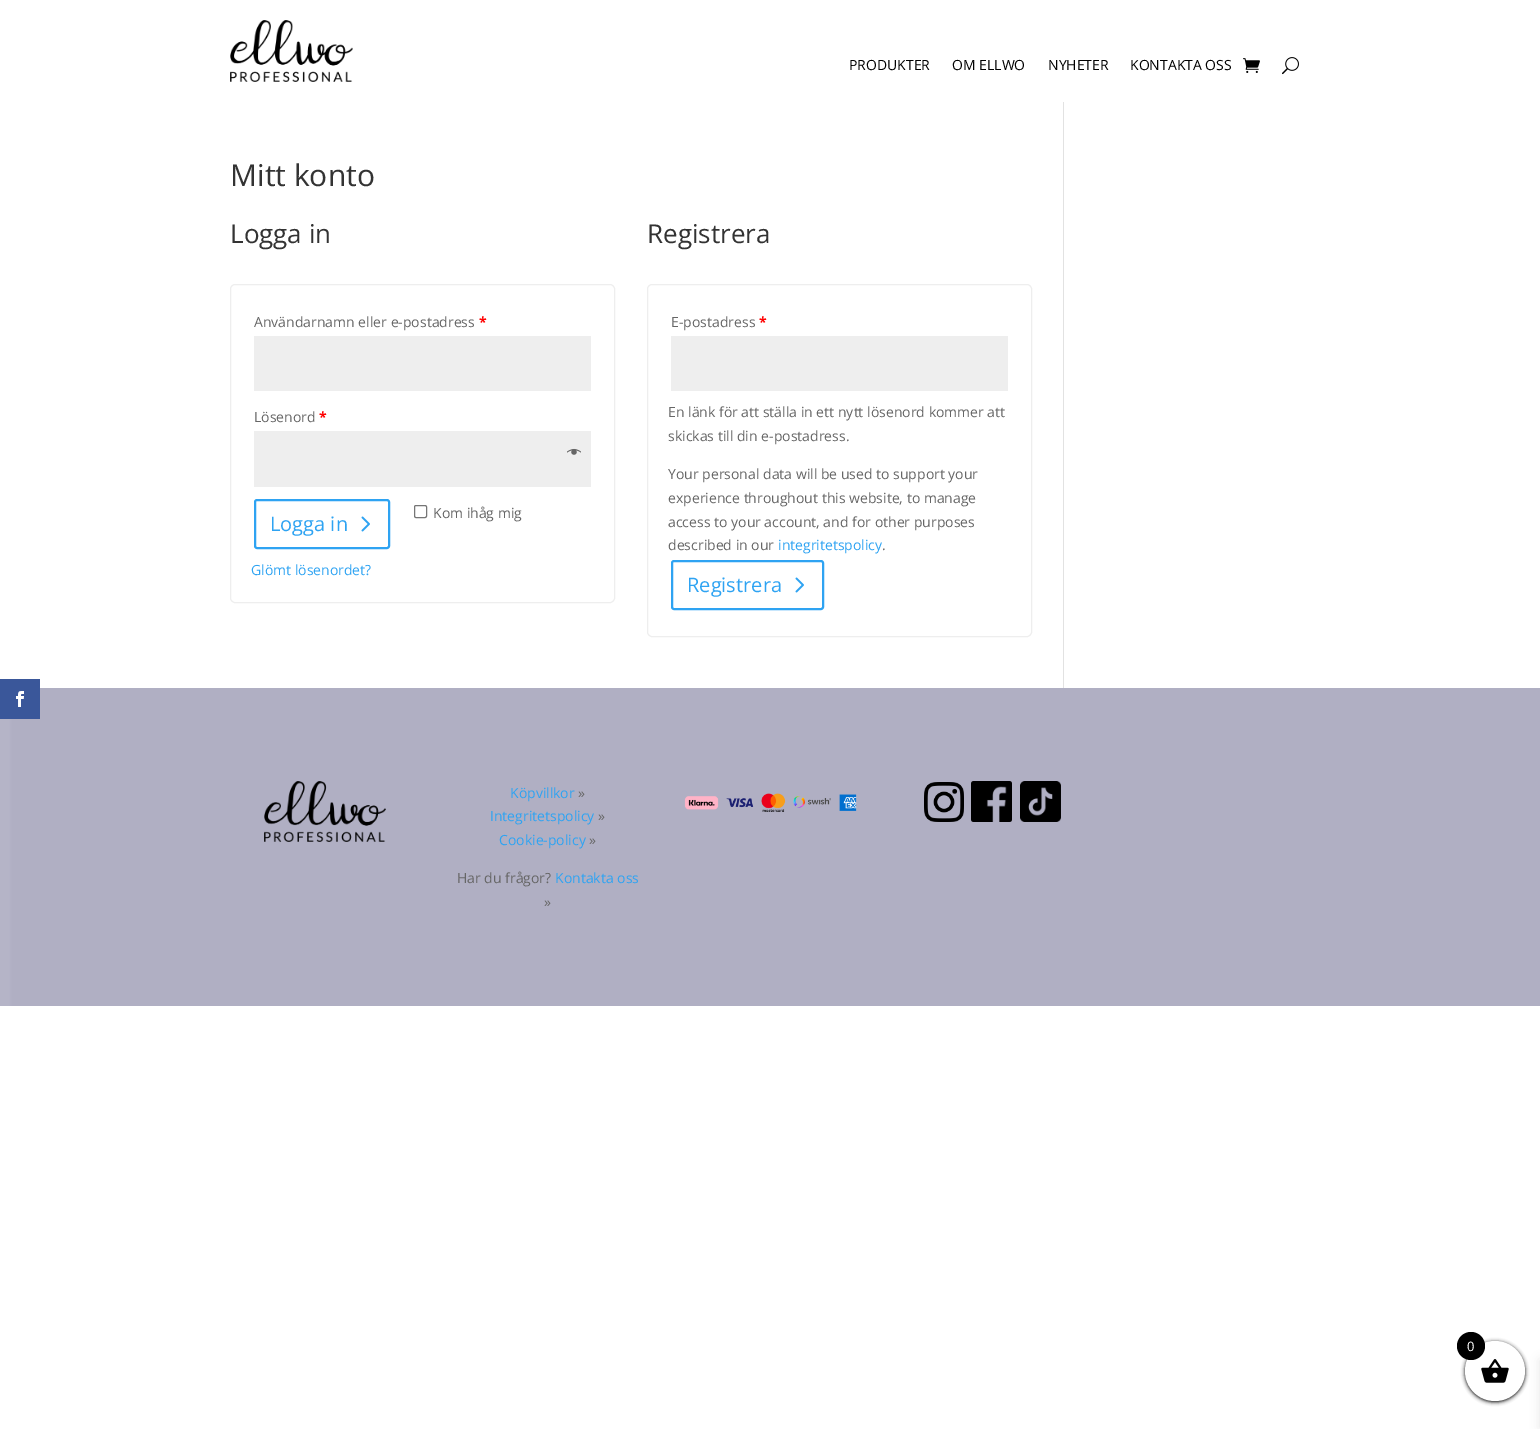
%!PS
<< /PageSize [1540 1429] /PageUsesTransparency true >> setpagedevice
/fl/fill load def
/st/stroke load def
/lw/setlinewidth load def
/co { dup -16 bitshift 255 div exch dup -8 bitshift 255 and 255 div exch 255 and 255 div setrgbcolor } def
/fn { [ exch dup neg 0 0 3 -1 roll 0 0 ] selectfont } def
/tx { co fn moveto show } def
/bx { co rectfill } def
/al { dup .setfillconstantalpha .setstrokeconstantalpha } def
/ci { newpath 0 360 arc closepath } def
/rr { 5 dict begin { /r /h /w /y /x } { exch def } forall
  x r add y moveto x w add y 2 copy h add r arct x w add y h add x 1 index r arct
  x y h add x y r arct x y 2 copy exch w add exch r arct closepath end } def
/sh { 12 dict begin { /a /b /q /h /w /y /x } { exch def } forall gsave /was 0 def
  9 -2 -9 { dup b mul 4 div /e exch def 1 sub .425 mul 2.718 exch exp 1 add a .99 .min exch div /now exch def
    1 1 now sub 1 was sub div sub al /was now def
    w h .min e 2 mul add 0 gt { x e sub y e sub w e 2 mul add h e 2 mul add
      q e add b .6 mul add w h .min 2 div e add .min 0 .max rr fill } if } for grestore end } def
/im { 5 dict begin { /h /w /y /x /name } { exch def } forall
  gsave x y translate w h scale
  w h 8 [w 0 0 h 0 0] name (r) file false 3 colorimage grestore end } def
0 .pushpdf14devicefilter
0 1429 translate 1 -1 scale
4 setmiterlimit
0 0 1540 1429 16#FFFFFF bx
(media/7.raw) 0 688 1540 318 im
0 679 40 40 16#3A579A bx
(media/1.raw) 16 691 8 16 im
(media/2.raw) 230 20 123 62 im
(media/3.raw) 1243 58 17 15 im
(media/4.raw) 1282 57 17 18 im
16#EEEEEE co
230.5 284.5 384 318 4.5 rr st
254 336 337 55 16#EEEEEE bx
254 431 337 56 16#EEEEEE bx
(media/5.raw) 567 448 14 7 im
16#767676 co
414.5 505.5 12 12 1.5 rr st
16#2EA3F2 co
2 lw
255 500 134 48 2 rr st
(media/6.raw) 361 516 9 16 im
16#EEEEEE co
1 lw
647.5 284.5 384 352 4.5 rr st
671 336 337 55 16#EEEEEE bx
16#2EA3F2 co
2 lw
672 561 151 48 2 rr st
(media/6.raw) 795 577 9 16 im
1063 102 1 586 16#E2E2E2 bx
(media/8.raw) 264 781 122 61 im
(media/9.raw) 684 793 173 19 im
(media/10.raw) 924 782 40 40 im
(media/11.raw) 971 781 41 41 im
(media/12.raw) 1020 781 41 41 im
16#000000 co
1465 1342 60 60 30 2 1 sh
1540 1360 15 68 0 5 .1 sh
16#FFFFFF co
1495 1371 30 ci fl
(media/13.raw) 1481 1359 28 24 im
16#000000 co
1471 1346 14 ci fl
(PRODUKTER) 849 70 /OpenSans-Regular 14 16#000000 tx
(OM ELLWO) 952 70 /OpenSans-Regular 14 16#000000 tx
(NYHETER) 1048 70 /OpenSans-Regular 14 16#000000 tx
(KONTAKTA OSS) 1130 70 /OpenSans-Regular 14 16#000000 tx
(Mitt konto) 230 186 /OpenSans-Regular 30 16#333333 tx
(Logga in) 230 243 /OpenSans-Regular 26 16#333333 tx
(Användarnamn eller e-postadress) 254 327 /OpenSans-Regular 14 16#666666 tx
(*) 479 327 /OpenSans-Bold 14 16#FF0000 tx
(Lösenord) 254 422 /OpenSans-Regular 14 16#666666 tx
(*) 319 422 /OpenSans-Bold 14 16#FF0000 tx
(Kom ihåg mig) 433 518 /OpenSans-Regular 14 16#666666 tx
(Logga in) 270 531 /OpenSans-Regular 20 16#2EA3F2 tx
(Glömt lösenordet?) 251 575 /OpenSans-Regular 14 16#2EA3F2 tx
(Registrera) 647 243 /OpenSans-Regular 26 16#333333 tx
(E-postadress) 671 327 /OpenSans-Regular 14 16#666666 tx
(*) 759 327 /OpenSans-Bold 14 16#FF0000 tx
(En länk för att ställa in ett nytt lösenord kommer att) 668 417 /OpenSans-Regular 14 16#666666 tx
(skickas till din e-postadress.) 668 441 /OpenSans-Regular 14 16#666666 tx
(Your personal data will be used to support your) 668 479 /OpenSans-Regular 14 16#666666 tx
(experience throughout this website, to manage) 668 503 /OpenSans-Regular 14 16#666666 tx
(access to your account, and for other purposes) 668 527 /OpenSans-Regular 14 16#666666 tx
(described in our) 668 550 /OpenSans-Regular 14 16#666666 tx
(integritetspolicy) 778 550 /OpenSans-Regular 14 16#2EA3F2 tx
(.) 882 550 /OpenSans-Regular 14 16#666666 tx
(Registrera) 687 592 /OpenSans-Regular 20 16#2EA3F2 tx
(Köpvillkor) 510 798 /OpenSans-Regular 14 16#2EA3F2 tx
(») 578 798 /OpenSans-Regular 14 16#666666 tx
(Integritetspolicy) 490 821 /OpenSans-Regular 14 16#2EA3F2 tx
(») 598 821 /OpenSans-Regular 14 16#666666 tx
(Cookie-policy) 499 845 /OpenSans-Regular 14 16#2EA3F2 tx
(») 589 845 /OpenSans-Regular 14 16#666666 tx
(Har du frågor?) 457 883 /OpenSans-Regular 14 16#666666 tx
(Kontakta oss) 555 883 /OpenSans-Regular 14 16#2EA3F2 tx
(») 544 907 /OpenSans-Regular 14 16#666666 tx
(0) 1467 1351 /OpenSans-Regular 13 16#FFFFFF tx
.poppdf14devicefilter showpage
